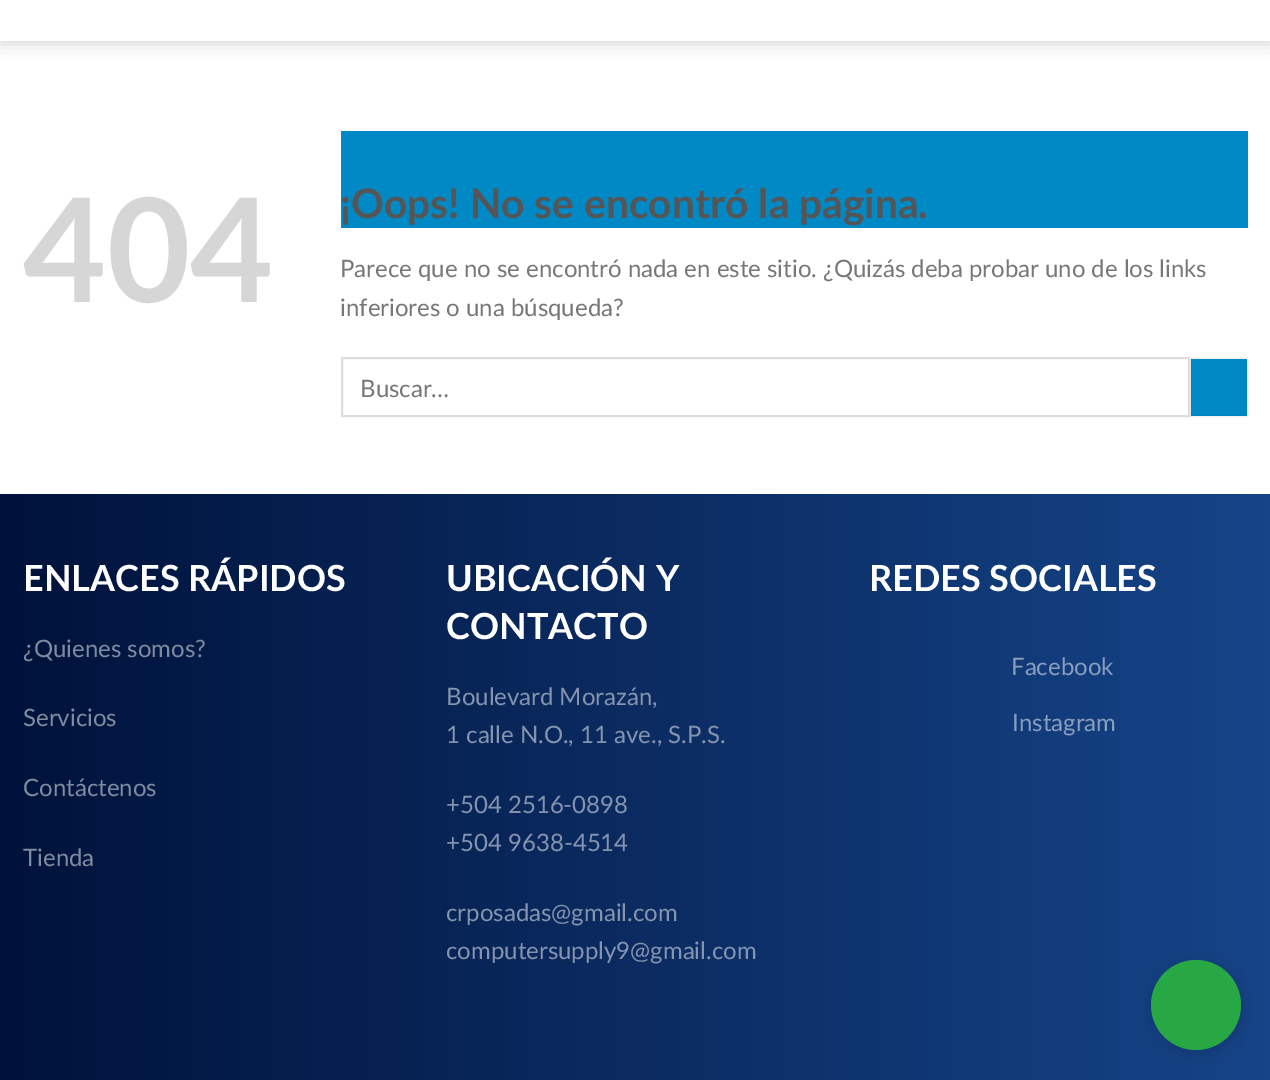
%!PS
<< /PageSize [1270 1080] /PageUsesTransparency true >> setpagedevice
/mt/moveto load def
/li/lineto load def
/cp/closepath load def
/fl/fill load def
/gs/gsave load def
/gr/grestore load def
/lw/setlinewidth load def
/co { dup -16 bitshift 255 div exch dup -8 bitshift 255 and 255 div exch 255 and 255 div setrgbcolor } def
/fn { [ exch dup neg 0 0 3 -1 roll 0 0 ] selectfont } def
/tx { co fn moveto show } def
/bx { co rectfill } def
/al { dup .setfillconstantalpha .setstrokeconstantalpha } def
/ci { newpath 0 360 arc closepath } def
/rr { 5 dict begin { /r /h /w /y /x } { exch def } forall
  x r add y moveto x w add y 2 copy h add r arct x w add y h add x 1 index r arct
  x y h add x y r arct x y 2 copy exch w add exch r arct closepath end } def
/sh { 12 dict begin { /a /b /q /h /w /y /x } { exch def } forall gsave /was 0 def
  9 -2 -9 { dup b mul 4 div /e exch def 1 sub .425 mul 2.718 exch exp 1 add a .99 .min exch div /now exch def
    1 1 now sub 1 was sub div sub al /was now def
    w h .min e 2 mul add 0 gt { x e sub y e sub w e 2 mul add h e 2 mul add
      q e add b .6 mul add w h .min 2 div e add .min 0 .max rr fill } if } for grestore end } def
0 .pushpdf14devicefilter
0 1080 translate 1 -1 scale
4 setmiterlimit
0 0 1270 1080 16#FFFFFF bx
gs
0 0 mt 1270 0 li 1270 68 li 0 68 li cp 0 -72 mt 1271 -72 li 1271 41 li 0 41 li cp eoclip newpath
16#000000 co
0 -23 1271 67 0 7.5 .16 sh
gr
341 131 907 97 16#0189C5 bx
16#DDDDDD co
2 lw
342 358 847 58 rectstroke
1191 359 56 57 16#0189C5 bx
0.05 al
16#000000 co
1191 358 56 58 rectstroke
1 al
gs 0 494 mt 1270 494 li 1270 1080 li 0 1080 li cp clip newpath
<< /ShadingType 2 /ColorSpace /DeviceRGB /Coords [0 862 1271 862] /Extend [true true] /Function << /FunctionType 2 /Domain [0 1] /C0 [0 .071 .231] /C1 [.086 .267 .533] /N 1 >> >> shfill gr
1151 963 90 90 45 7.5 .16 sh
16#28A745 co
1196 1005 45 ci fl
(404) 23 302 /Lato-Bold 144 16#D6D6D6 tx
(¡Oops! No se encontró la página.) 340 218 /Lato-Bold 40.75 16#555555 tx
(Parece que no se encontró nada en este sitio. ¿Quizás deba probar uno de los links) 340 277 /Lato-Regular 24 16#777777 tx
(inferiores o una búsqueda?) 340 316 /Lato-Regular 24 16#777777 tx
(Buscar…) 360 397 /Lato-Regular 24 16#777777 tx
(ENLACES RÁPIDOS) 23 591 /Lato-Bold 36 16#FFFFFF tx
(¿Quienes somos?) 23 657 /Lato-Regular 24 16#808BA0 tx
(Servicios) 23 726 /Lato-Regular 24 16#808BA0 tx
(Contáctenos) 23 796 /Lato-Regular 24 16#808BA0 tx
(Tienda) 23 866 /Lato-Regular 24 16#808BA0 tx
(UBICACIÓN Y) 446 591 /Lato-Bold 36 16#FFFFFF tx
(CONTACTO) 446 639 /Lato-Bold 36 16#FFFFFF tx
(Boulevard Morazán,) 446 705 /Lato-Regular 24 16#8493AE tx
(1 calle N.O., 11 ave., S.P.S.) 446 743 /Lato-Regular 24 16#8493AE tx
(+504 2516-0898) 446 813 /Lato-Regular 24 16#8493AE tx
(+504) 446 851 /Lato-Regular 24 16#8493AE tx
(9638-4514) 508 851 /Lato-Regular 24 16#8493AE tx
(crposadas@gmail.com) 446 921 /Lato-Regular 24 16#8493AE tx
(computersupply9@gmail.com) 446 959 /Lato-Regular 24 16#8493AE tx
(REDES SOCIALES) 869 591 /Lato-Bold 36 16#FFFFFF tx
(Facebook) 1011 675 /Lato-Regular 24 16#899DBD tx
(Instagram) 1012 731 /Lato-Regular 24 16#899DBD tx
.poppdf14devicefilter showpage
